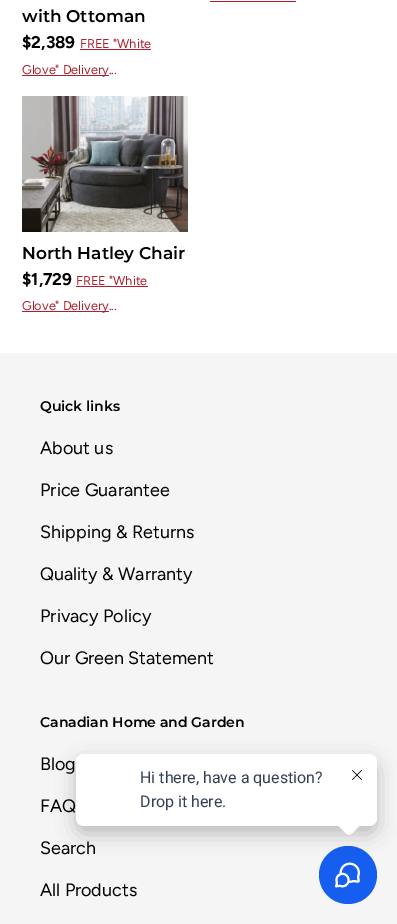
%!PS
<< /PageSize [397 924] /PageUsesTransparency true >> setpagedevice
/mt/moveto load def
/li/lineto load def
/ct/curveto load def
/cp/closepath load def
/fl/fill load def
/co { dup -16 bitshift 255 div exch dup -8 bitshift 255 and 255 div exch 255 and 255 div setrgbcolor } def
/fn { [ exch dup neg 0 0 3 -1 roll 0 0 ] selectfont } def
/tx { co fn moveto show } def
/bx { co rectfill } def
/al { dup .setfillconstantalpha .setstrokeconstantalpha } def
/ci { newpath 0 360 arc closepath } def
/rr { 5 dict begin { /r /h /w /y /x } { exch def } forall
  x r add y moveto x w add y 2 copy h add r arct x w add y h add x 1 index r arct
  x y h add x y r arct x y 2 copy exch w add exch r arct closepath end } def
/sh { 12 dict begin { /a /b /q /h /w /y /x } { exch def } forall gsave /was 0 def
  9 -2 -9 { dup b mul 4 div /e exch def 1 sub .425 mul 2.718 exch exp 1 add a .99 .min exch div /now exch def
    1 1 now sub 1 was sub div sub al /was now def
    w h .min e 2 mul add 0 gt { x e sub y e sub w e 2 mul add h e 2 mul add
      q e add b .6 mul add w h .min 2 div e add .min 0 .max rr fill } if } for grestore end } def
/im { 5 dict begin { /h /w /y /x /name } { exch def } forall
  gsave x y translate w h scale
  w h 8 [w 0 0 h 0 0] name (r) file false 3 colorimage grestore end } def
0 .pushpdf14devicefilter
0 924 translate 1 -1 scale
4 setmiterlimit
0 0 397 924 16#FFFFFF bx
210 1 86 1 16#AF1E2D bx
80 49 71 1 16#AF1E2D bx
22 75 87 1 16#AF1E2D bx
(media/1.raw) 22 96 166 136 im
76 286 72 1 16#AF1E2D bx
22 311 87 1 16#AF1E2D bx
0 353 397 571 16#F5F5F5 bx
16#155EEF co
348 875 29 ci fl
(media/3.raw) 335 862 25 26 im
16#000000 co
76 762 301 72 8 10 .24 sh
16#FFFFFF co
76 754 301 72 8 rr fl
352 810.5 mt 360.5 819 li 362 820.5 362 823.5 360.5 825 ct 352 833.5 li 350.5 835 347.5 835 346 833.5 ct 337.5 825 li 336 823.5 336 820.5 337.5 819 ct 346 810.5 li 347.5 809 350.5 809 352 810.5 ct cp fl
(media/2.raw) 352 770 10 10 im
(with Ottoman) 22 22 /Montserrat-SemiBold 17 16#000000 tx
($2,389) 22 48 /Figtree-Bold 17 16#000000 tx
(FREE "White) 80 48 /Figtree-Regular 12.75 16#AF1E2D tx
(Glove" Delivery...) 22 74 /Figtree-Regular 12.75 16#AF1E2D tx
(North Hatley Chair) 22 259 /Montserrat-SemiBold 17 16#000000 tx
($1,729) 22 285 /Figtree-Bold 17 16#000000 tx
(FREE "White) 76 285 /Figtree-Regular 12.75 16#AF1E2D tx
(Glove" Delivery...) 22 310 /Figtree-Regular 12.75 16#AF1E2D tx
(Quick links) 40 411 /Montserrat-SemiBold 14 16#000000 tx
(About us) 40 454 /Figtree-Regular 18 16#000000 tx
(Price Guarantee) 40 496 /Figtree-Regular 18 16#000000 tx
(Shipping & Returns) 40 538 /Figtree-Regular 18 16#000000 tx
(Quality & Warranty) 40 580 /Figtree-Regular 18 16#000000 tx
(Privacy Policy) 40 622 /Figtree-Regular 18 16#000000 tx
(Our Green Statement) 40 664 /Figtree-Regular 18 16#000000 tx
(Canadian Home and Garden) 40 727 /Montserrat-SemiBold 14 16#000000 tx
(Blog) 40 770 /Figtree-Regular 18 16#000000 tx
(FAQ) 40 812 /Figtree-Regular 18 16#000000 tx
(Search) 40 854 /Figtree-Regular 18 16#000000 tx
(All Products) 40 896 /Figtree-Regular 18 16#000000 tx
(Hi there, have a question?) 140 783 /Roboto-Regular 16 16#344054 tx
(Drop it here.) 140 807 /Roboto-Regular 16 16#344054 tx
.poppdf14devicefilter showpage
